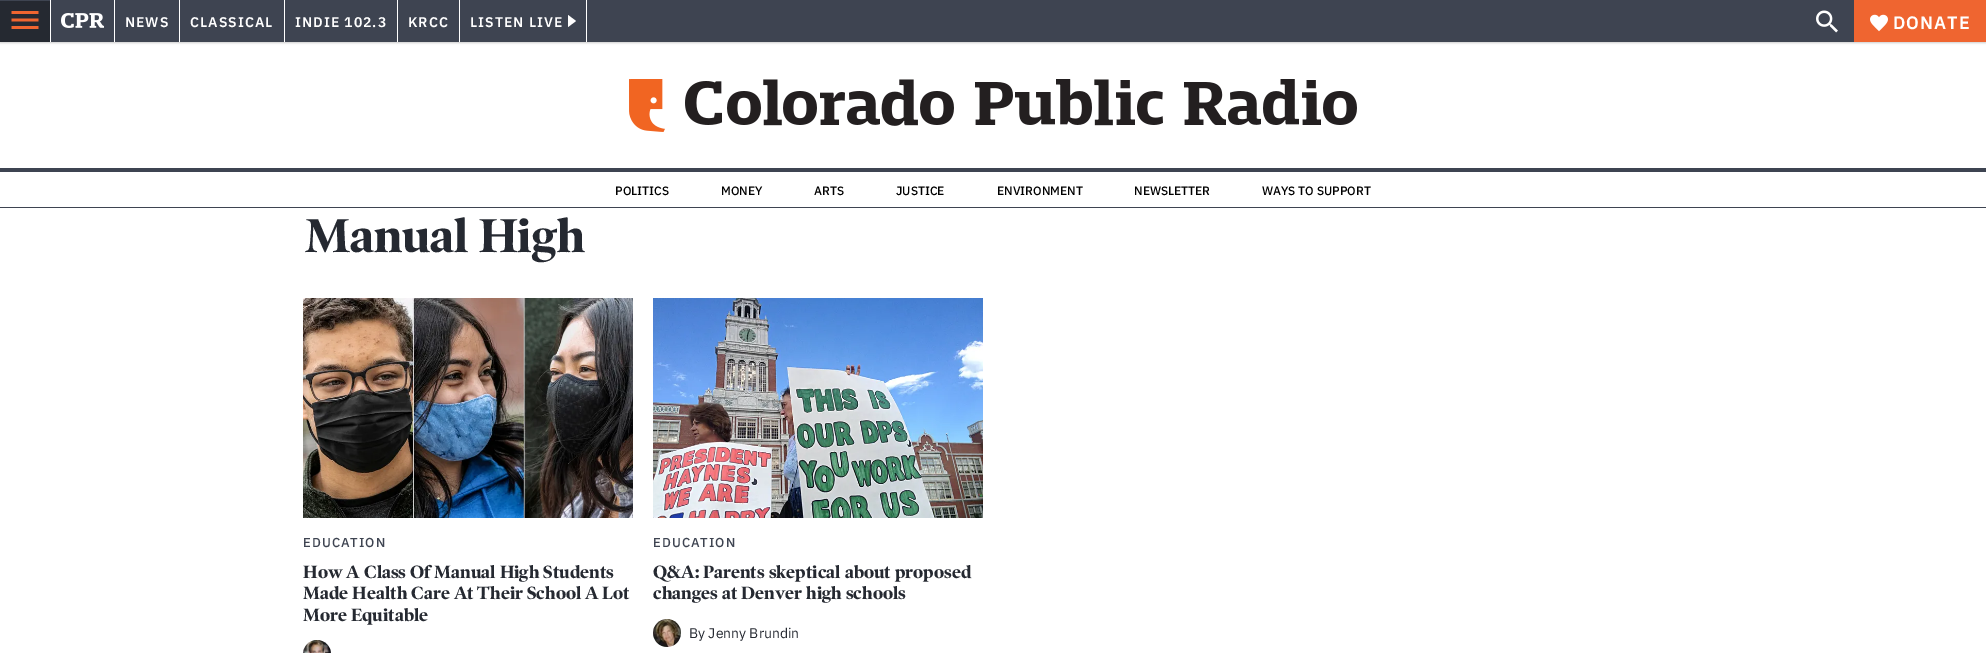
%!PS
<< /PageSize [1986 653] /PageUsesTransparency true >> setpagedevice
/mt/moveto load def
/li/lineto load def
/cp/closepath load def
/fl/fill load def
/co { dup -16 bitshift 255 div exch dup -8 bitshift 255 and 255 div exch 255 and 255 div setrgbcolor } def
/fn { [ exch dup neg 0 0 3 -1 roll 0 0 ] selectfont } def
/tx { co fn moveto show } def
/bx { co rectfill } def
/al { dup .setfillconstantalpha .setstrokeconstantalpha } def
/rr { 5 dict begin { /r /h /w /y /x } { exch def } forall
  x r add y moveto x w add y 2 copy h add r arct x w add y h add x 1 index r arct
  x y h add x y r arct x y 2 copy exch w add exch r arct closepath end } def
/sh { 12 dict begin { /a /b /q /h /w /y /x } { exch def } forall gsave /was 0 def
  9 -2 -9 { dup b mul 4 div /e exch def 1 sub .425 mul 2.718 exch exp 1 add a .99 .min exch div /now exch def
    1 1 now sub 1 was sub div sub al /was now def
    w h .min e 2 mul add 0 gt { x e sub y e sub w e 2 mul add h e 2 mul add
      q e add b .6 mul add w h .min 2 div e add .min 0 .max rr fill } if } for grestore end } def
/im { 5 dict begin { /h /w /y /x /name } { exch def } forall
  gsave x y translate w h scale
  w h 8 [w 0 0 h 0 0] name (r) file false 3 colorimage grestore end } def
0 .pushpdf14devicefilter
0 653 translate 1 -1 scale
4 setmiterlimit
0 0 1986 653 16#FFFFFF bx
16#000000 co
0 1 1986 42 0 1 .2 sh
0 0 1854 42 16#3E4451 bx
0 1 50 41 16#252931 bx
(media/1.raw) 11 11 28 18 im
114 0 1 42 16#FFFFFF bx
50 0 1 42 16#FFFFFF bx
(media/2.raw) 61 13 43 15 im
179 0 1 42 16#FFFFFF bx
284 0 1 42 16#FFFFFF bx
397 0 1 42 16#FFFFFF bx
459 0 1 42 16#FFFFFF bx
586 0 1 42 16#FFFFFF bx
568 27 mt 568 15 li 576 21 li cp fl
(media/3.raw) 1816 10 22 23 im
1854 0 132 42 16#EF6530 bx
(media/4.raw) 1870 14 18 18 im
0 168 1986 4 16#3E4451 bx
(media/5.raw) 629 79 728 53 im
0 207 1986 1 16#3E4451 bx
(media/6.raw) 303 298 330 220 im
(media/7.raw) 303 640 28 13 im
(media/8.raw) 653 298 330 220 im
(media/9.raw) 653 619 28 28 im
/IBMPlexSans-SemiBold 14 fn
16#FFFFFF co
125 27 mt 1 0 (NEWS) ashow
190 27 mt 1 0 (CLASSICAL) ashow
295 27 mt 1 0 (INDIE 102.3) ashow
408 27 mt 1 0 (KRCC) ashow
470 27 mt 1 0 (LISTEN LIVE) ashow
/IBMPlexSans-SemiBold 18 fn
1893 29 mt 1 0 (DONATE) ashow
(POLITICS) 615 195 /IBMPlexSans-Medium 12 16#000000 tx
(MONEY) 721 195 /IBMPlexSans-Medium 12 16#000000 tx
(ARTS) 814 195 /IBMPlexSans-Medium 12 16#000000 tx
(JUSTICE) 896 195 /IBMPlexSans-Medium 12 16#000000 tx
(ENVIRONMENT) 997 195 /IBMPlexSans-Medium 12 16#000000 tx
(NEWSLETTER) 1134 195 /IBMPlexSans-Medium 12 16#000000 tx
(WAYS TO SUPPORT) 1262 195 /IBMPlexSans-Medium 12 16#000000 tx
(Manual High) 305 252 /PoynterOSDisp-Bold 48 16#252931 tx
/IBMPlexSans-Medium 13 fn
16#3E4451 co
303 547 mt 1 0 (EDUCATION) ashow
(How A Class Of Manual High Students) 303 578 /PoynterOSDisp-Bold 18 16#252931 tx
(Made Health Care At Their School A Lot) 303 599 /PoynterOSDisp-Bold 18 16#252931 tx
(More Equitable) 303 621 /PoynterOSDisp-Bold 18 16#252931 tx
/IBMPlexSans-Medium 13 fn
16#3E4451 co
653 547 mt 1 0 (EDUCATION) ashow
(Q&A: Parents skeptical about proposed) 653 578 /PoynterOSDisp-Bold 18 16#252931 tx
(changes at Denver high schools) 653 599 /PoynterOSDisp-Bold 18 16#252931 tx
(By Jenny Brundin) 689 638 /IBMPlexSans-Regular 14 16#252931 tx
.poppdf14devicefilter showpage
